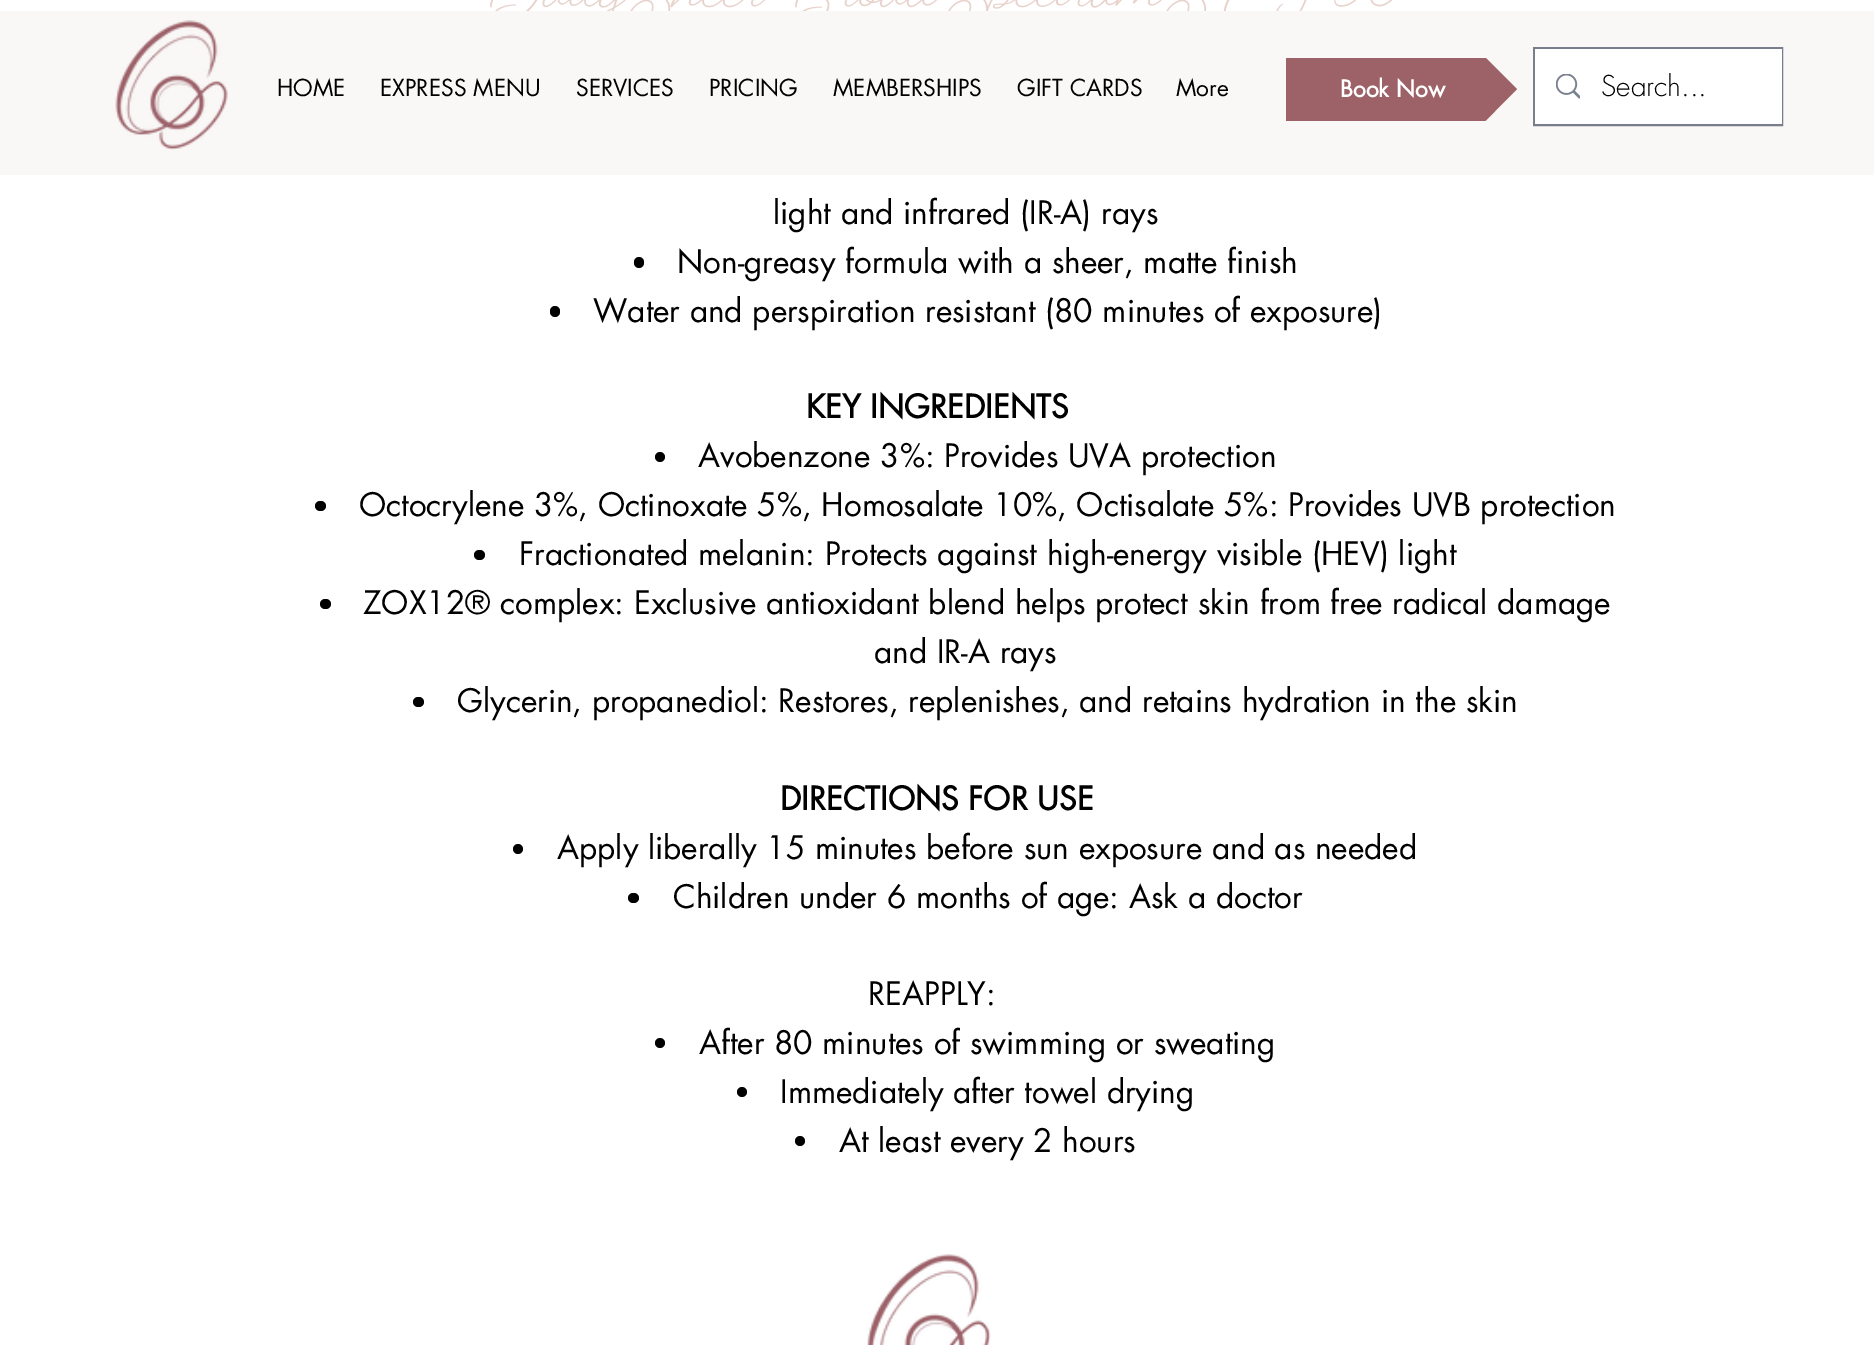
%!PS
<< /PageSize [1874 1345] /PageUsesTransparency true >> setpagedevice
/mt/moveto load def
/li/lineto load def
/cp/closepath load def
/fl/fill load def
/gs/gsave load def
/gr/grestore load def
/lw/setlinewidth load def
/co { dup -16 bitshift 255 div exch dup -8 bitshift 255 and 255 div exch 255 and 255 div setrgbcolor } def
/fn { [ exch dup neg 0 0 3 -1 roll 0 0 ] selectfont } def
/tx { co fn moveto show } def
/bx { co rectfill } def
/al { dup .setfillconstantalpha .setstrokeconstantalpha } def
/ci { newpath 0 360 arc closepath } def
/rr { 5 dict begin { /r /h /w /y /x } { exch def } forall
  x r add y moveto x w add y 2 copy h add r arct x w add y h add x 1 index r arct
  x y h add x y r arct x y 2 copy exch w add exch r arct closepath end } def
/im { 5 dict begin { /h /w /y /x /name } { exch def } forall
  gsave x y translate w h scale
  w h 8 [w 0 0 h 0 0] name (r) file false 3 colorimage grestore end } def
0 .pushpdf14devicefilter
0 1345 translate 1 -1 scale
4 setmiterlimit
0 0 1874 1345 16#FFFFFF bx
(media/3.raw) 490 0 903 11 im
0.6 al
490 0 903 11 16#FFFFFF bx
1 al
0 11 1874 164 16#FAF8F7 bx
(media/1.raw) 115 20 113 130 im
1286 58 144 63 16#9D6268 bx
gs
1286 58 231 63 rectclip
1517 89 mt 1430 89 li 1430 2 li cp fl
1430 89 mt 1517 89 li 1430 177 li cp fl
gr
16#787E8C co
2 lw
1534 48 248 77 rectstroke
1535 49 247 75 16#FFFFFF bx
(media/2.raw) 1556 74 24 25 im
16#000000 co
634 257 10 11 5 rr fl
550 306 10 11 5 rr fl
660 457 5 ci fl
315 501 11 10 5 rr fl
474 550 11 10 5 rr fl
320 599 11 10 5 rr fl
413 697 11 10 5 rr fl
518 849 5 ci fl
628 893 11 10 5 rr fl
660 1043 5 ci fl
742 1092 5 ci fl
800 1141 5 ci fl
(media/4.raw) 867 1254 124 91 im
(HOME) 277 96 /futura-Regular 22.75 16#000000 tx
(EXPRESS MENU) 380 96 /futura-Regular 22.75 16#000000 tx
(SERVICES) 576 96 /futura-Regular 22.75 16#000000 tx
(PRICING) 709 96 /futura-Regular 22.75 16#000000 tx
(MEMBERSHIPS) 833 96 /futura-Regular 22.75 16#000000 tx
(GIFT CARDS) 1017 96 /futura-Regular 22.75 16#000000 tx
(More) 1176 96 /futura-Regular 22.75 16#000000 tx
(Book Now) 1340 97 /futura-Bold 22.75 16#FFFFFF tx
(Search...) 1601 96 /futura-Light 28 16#000000 tx
(light and infrared \(IR-A\) rays) 773 224 /futura-Regular 31.5 16#000000 tx
(Non-greasy formula with a sheer, matte finish) 677 273 /futura-Regular 31.5 16#000000 tx
(Water and perspiration resistant \(80 minutes of exposure\)) 593 322 /futura-Regular 31.5 16#000000 tx
(KEY INGREDIENTS) 806 418 /futura-Bold 31.5 16#000000 tx
(Avobenzone 3%: Provides UVA protection) 698 467 /futura-Regular 31.5 16#000000 tx
(Octocrylene 3%, Octinoxate 5%, Homosalate 10%, Octisalate 5%: Provides UVB protection) 359 516 /futura-Regular 31.5 16#000000 tx
(Fractionated melanin: Protects against high-energy visible \(HEV\) light) 519 565 /futura-Regular 31.5 16#000000 tx
(ZOX12® complex: Exclusive antioxidant blend helps protect skin from free radical damage) 363 614 /futura-Regular 31.5 16#000000 tx
(and IR-A rays) 874 663 /futura-Regular 31.5 16#000000 tx
(Glycerin, propanediol: Restores, replenishes, and retains hydration in the skin) 457 712 /futura-Regular 31.5 16#000000 tx
(DIRECTIONS FOR USE) 780 810 /futura-Bold 31.5 16#000000 tx
(Apply liberally 15 minutes before sun exposure and as needed) 557 859 /futura-Regular 31.5 16#000000 tx
(Children under 6 months of age: Ask a doctor) 673 908 /futura-Regular 31.5 16#000000 tx
(REAPPLY:) 868 1005 /futura-Regular 31.5 16#000000 tx
(After 80 minutes of swimming or sweating) 699 1054 /futura-Regular 31.5 16#000000 tx
(Immediately after towel drying) 780 1103 /futura-Regular 31.5 16#000000 tx
(At least every 2 hours) 839 1152 /futura-Regular 31.5 16#000000 tx
.poppdf14devicefilter showpage
